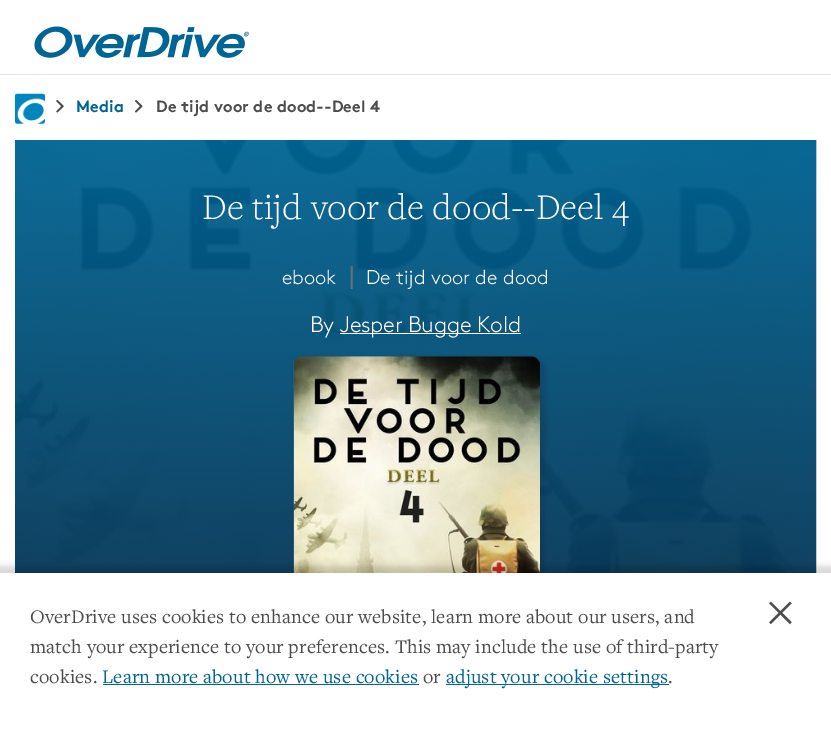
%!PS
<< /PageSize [831 742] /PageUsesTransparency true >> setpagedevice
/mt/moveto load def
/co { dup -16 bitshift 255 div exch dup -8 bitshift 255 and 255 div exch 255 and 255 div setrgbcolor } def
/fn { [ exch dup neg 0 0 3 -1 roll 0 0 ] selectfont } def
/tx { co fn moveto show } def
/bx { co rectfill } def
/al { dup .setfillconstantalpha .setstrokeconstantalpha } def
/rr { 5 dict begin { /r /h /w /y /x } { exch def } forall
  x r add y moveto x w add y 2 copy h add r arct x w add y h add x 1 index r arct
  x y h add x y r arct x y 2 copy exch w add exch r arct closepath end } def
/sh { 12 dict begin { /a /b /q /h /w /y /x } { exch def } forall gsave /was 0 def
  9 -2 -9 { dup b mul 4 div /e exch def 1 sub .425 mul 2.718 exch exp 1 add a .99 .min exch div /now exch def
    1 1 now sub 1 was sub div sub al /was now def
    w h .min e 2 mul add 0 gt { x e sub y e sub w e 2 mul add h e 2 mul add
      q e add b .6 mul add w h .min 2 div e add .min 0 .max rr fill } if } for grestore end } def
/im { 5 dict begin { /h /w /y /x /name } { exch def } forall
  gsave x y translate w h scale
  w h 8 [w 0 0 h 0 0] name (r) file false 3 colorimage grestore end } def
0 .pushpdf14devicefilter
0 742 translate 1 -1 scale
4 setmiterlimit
0 0 831 742 16#FFFFFF bx
0 74 831 1 16#E3E3E3 bx
(media/1.raw) 34 26 215 32 im
(media/2.raw) 15 93 30 31 im
(media/3.raw) 56 100 8 13 im
(media/4.raw) 135 100 8 13 im
(media/5.raw) 15 140 802 433 im
340 333 181 1 16#FFFFFF bx
16#062340 co
295 359 250 331 10 3 .25 sh
0.1 al
293 361 1 212 16#A7A9AC bx
1 al
(media/6.raw) 293 356 247 217 im
16#000000 co
-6 566 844 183 0 3 .15 sh
0 573 831 169 16#FFFFFF bx
103 684 316 1 16#006595 bx
446 684 223 1 16#006595 bx
/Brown-Bold 16.25 fn
76 112 mt .12 0 (Media) ashow
16#4D4D4D co
156 112 mt .12 0 (De tijd voor de dood--Deel 4) ashow
(De tijd voor de dood--Deel 4) 202 219 /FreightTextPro-Light 37.5 16#FFFFFF tx
(ebook) 282 284 /Brown-Light 20 16#FFFFFF tx
(∣) 346 284 /DejaVuSans-Regular 23 16#6D7074 tx
(De tijd voor de dood) 366 284 /Brown-Light 20 16#FFFFFF tx
/Brown-Light 22.5 fn
310 332 mt -.25 0 (By) ashow
340 332 mt -.25 0 (Jesper Bugge Kold) ashow
/FreightTextPro-Regular 20 fn
16#4D4D4D co
30 623 mt .12 0 (OverDrive uses cookies to enhance our website, learn more about our users, and) ashow
30 653 mt .12 0 (match your experience to your preferences. This may include the use of third-party) ashow
30 683 mt .12 0 (cookies.) ashow
16#006595 co
102 683 mt .12 0 (Learn more about how we use cookies) ashow
16#4D4D4D co
423 683 mt .12 0 (or) ashow
16#006595 co
446 683 mt .12 0 (adjust your cookie settings) ashow
16#4D4D4D co
668 683 mt .12 0 (.) ashow
(×) 767 626 /FreightTextPro-Regular 56 16#4D4D4D tx
.poppdf14devicefilter showpage
